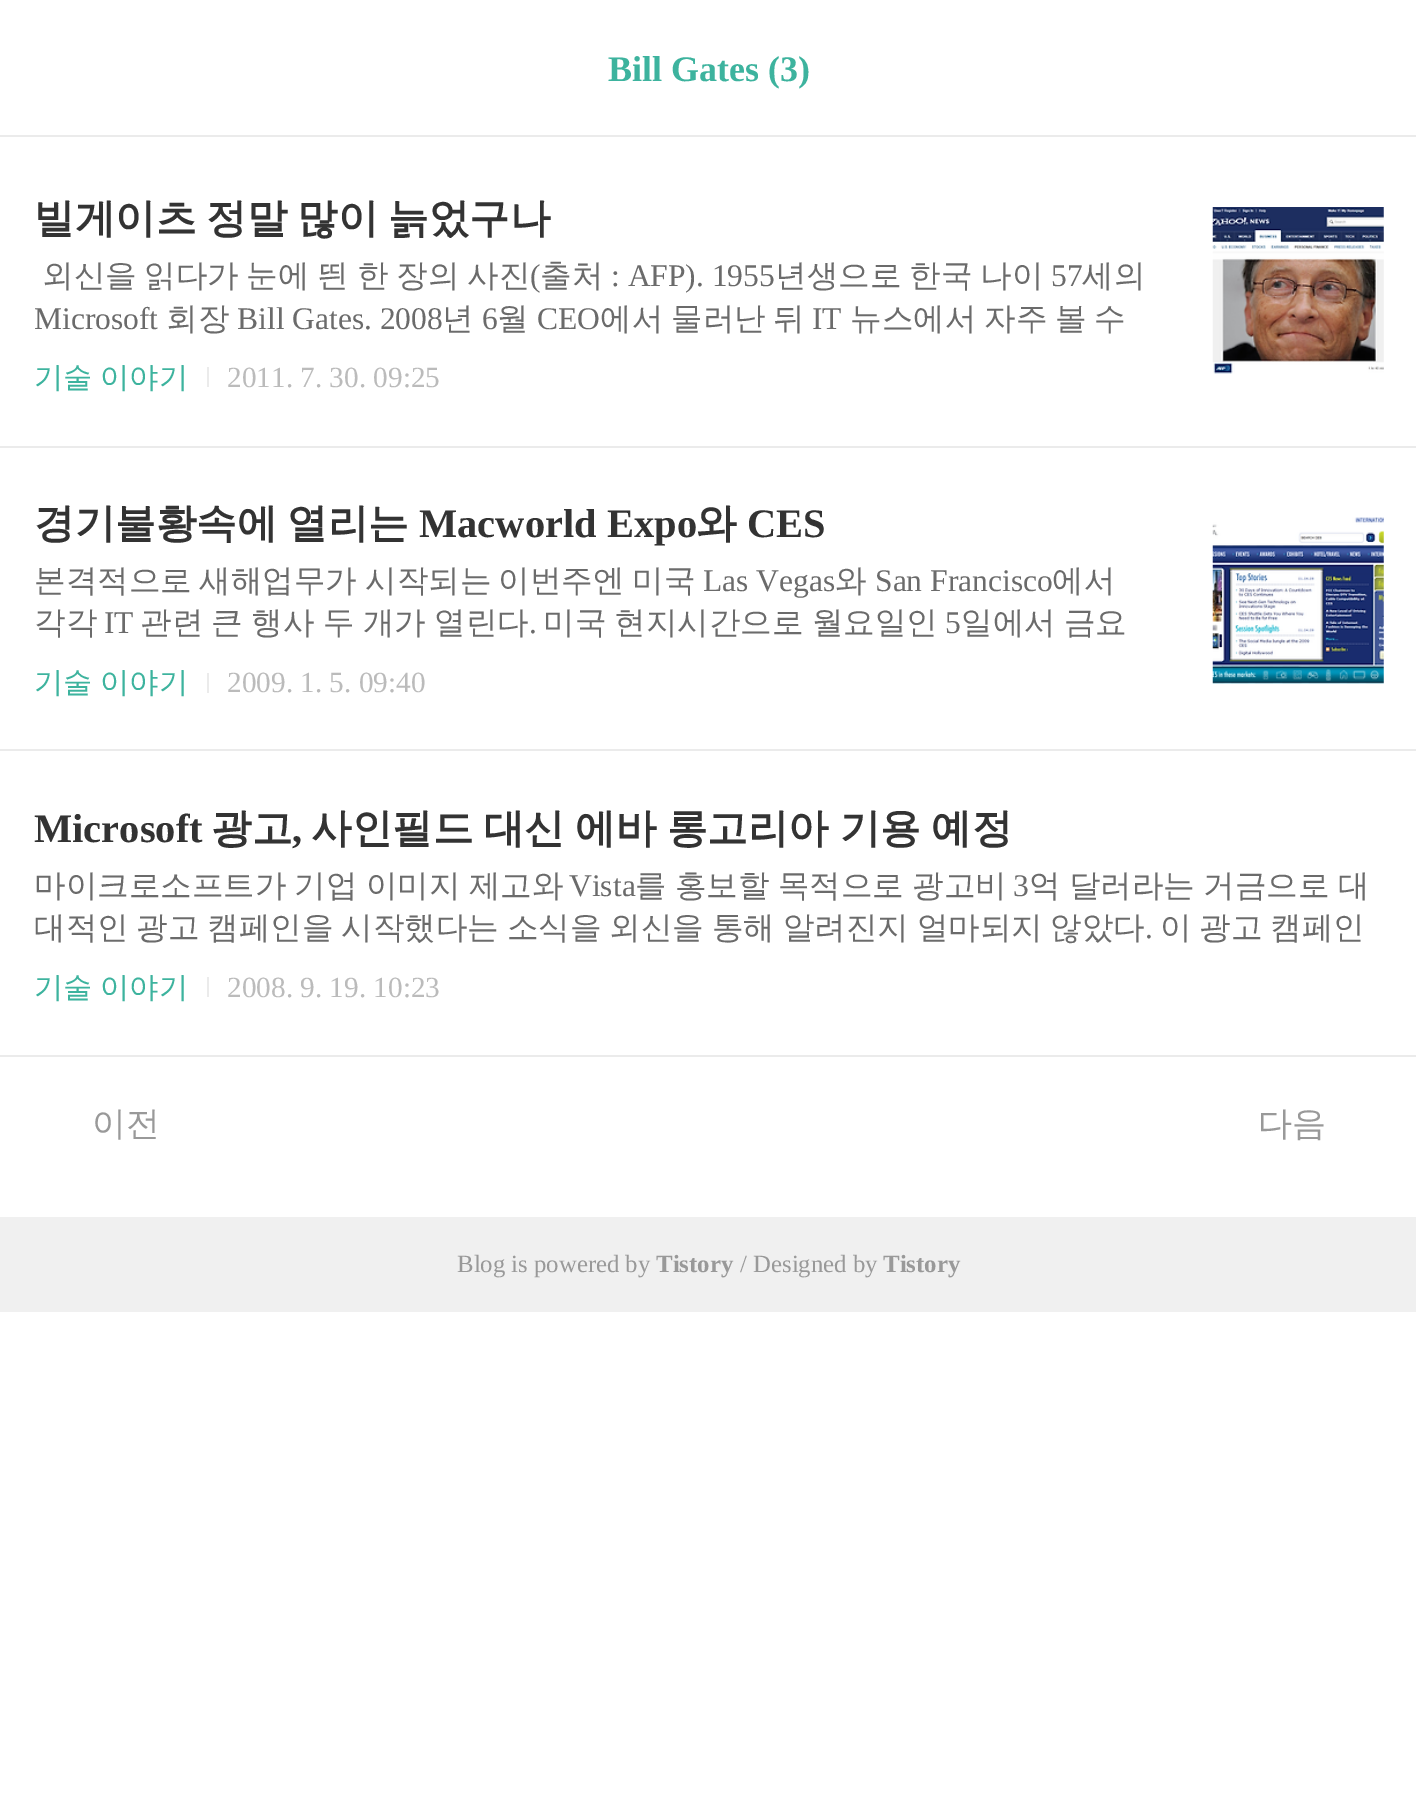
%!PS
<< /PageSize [1416 1797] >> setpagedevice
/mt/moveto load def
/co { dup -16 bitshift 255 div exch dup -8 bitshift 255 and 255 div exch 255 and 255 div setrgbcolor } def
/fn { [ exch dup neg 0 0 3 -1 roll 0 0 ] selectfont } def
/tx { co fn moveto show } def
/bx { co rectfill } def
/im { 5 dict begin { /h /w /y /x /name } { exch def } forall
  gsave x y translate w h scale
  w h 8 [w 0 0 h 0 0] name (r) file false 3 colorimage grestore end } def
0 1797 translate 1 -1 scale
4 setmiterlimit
0 0 1416 1797 16#FFFFFF bx
0 135 1416 2 16#EBEBEB bx
0 446 1416 2 16#EBEBEB bx
(media/1.raw) 1212 207 172 167 im
207 367 2 20 16#EBEBEB bx
0 749 1416 2 16#EBEBEB bx
(media/2.raw) 1212 517 172 167 im
207 673 2 20 16#EBEBEB bx
0 1055 1416 2 16#EBEBEB bx
207 977 2 20 16#EBEBEB bx
0 1217 1416 95 16#F0F0F0 bx
(Bill Gates \(3\)) 608 81 /LiberationSerif-Bold 36 16#3DB39E tx
/WenQuanYiZenHei-Bold 40.5 fn
16#333333 co
34 232 mt -2 0 32 (빌게이츠 정말 많이 늙었구나) widthshow
(외신을) 42 286 /WenQuanYiZenHei-Medium 31.5 16#6B6B6B tx
(읽다가) 144 286 /WenQuanYiZenHei-Medium 31.5 16#6B6B6B tx
(눈에) 246 286 /WenQuanYiZenHei-Medium 31.5 16#6B6B6B tx
(띈) 317 286 /WenQuanYiZenHei-Medium 31.5 16#6B6B6B tx
(한) 357 286 /WenQuanYiZenHei-Medium 31.5 16#6B6B6B tx
(장의) 396 286 /WenQuanYiZenHei-Medium 31.5 16#6B6B6B tx
(사진) 467 286 /WenQuanYiZenHei-Medium 31.5 16#6B6B6B tx
(\() 530 286 /LiberationSerif-Regular 31.5 16#6B6B6B tx
(출처) 540 286 /WenQuanYiZenHei-Medium 31.5 16#6B6B6B tx
(: AFP\). 1955) 611 286 /LiberationSerif-Regular 31.5 16#6B6B6B tx
(년생으로) 775 286 /WenQuanYiZenHei-Medium 31.5 16#6B6B6B tx
(한국) 909 286 /WenQuanYiZenHei-Medium 31.5 16#6B6B6B tx
(나이) 980 286 /WenQuanYiZenHei-Medium 31.5 16#6B6B6B tx
(57) 1051 286 /LiberationSerif-Regular 31.5 16#6B6B6B tx
(세의) 1082 286 /WenQuanYiZenHei-Medium 31.5 16#6B6B6B tx
(Microsoft) 34 329 /LiberationSerif-Regular 31.5 16#6B6B6B tx
(회장) 166 329 /WenQuanYiZenHei-Medium 31.5 16#6B6B6B tx
(Bill Gates. 2008) 237 329 /LiberationSerif-Regular 31.5 16#6B6B6B tx
(년) 442 329 /WenQuanYiZenHei-Medium 31.5 16#6B6B6B tx
(6) 482 329 /LiberationSerif-Regular 31.5 16#6B6B6B tx
(월) 497 329 /WenQuanYiZenHei-Medium 31.5 16#6B6B6B tx
(CEO) 537 329 /LiberationSerif-Regular 31.5 16#6B6B6B tx
(에서) 600 329 /WenQuanYiZenHei-Medium 31.5 16#6B6B6B tx
(물러난) 671 329 /WenQuanYiZenHei-Medium 31.5 16#6B6B6B tx
(뒤) 773 329 /WenQuanYiZenHei-Medium 31.5 16#6B6B6B tx
(IT) 812 329 /LiberationSerif-Regular 31.5 16#6B6B6B tx
(뉴스에서) 850 329 /WenQuanYiZenHei-Medium 31.5 16#6B6B6B tx
(자주) 984 329 /WenQuanYiZenHei-Medium 31.5 16#6B6B6B tx
(볼) 1055 329 /WenQuanYiZenHei-Medium 31.5 16#6B6B6B tx
(수) 1094 329 /WenQuanYiZenHei-Medium 31.5 16#6B6B6B tx
(기술) 34 387 /WenQuanYiZenHei-Medium 29.25 16#3DB39E tx
(이야기) 100 387 /WenQuanYiZenHei-Medium 29.25 16#3DB39E tx
(2011. 7. 30. 09:25) 227 387 /LiberationSerif-Regular 29.25 16#BBBBBB tx
(경기불황속에) 34 537 /WenQuanYiZenHei-Bold 40.5 16#333333 tx
(열리는) 287 537 /WenQuanYiZenHei-Bold 40.5 16#333333 tx
(Macworld Expo) 419 537 /LiberationSerif-Bold 40.5 16#333333 tx
(와) 696 537 /WenQuanYiZenHei-Bold 40.5 16#333333 tx
(CES) 747 537 /LiberationSerif-Bold 40.5 16#333333 tx
(본격적으로) 34 591 /WenQuanYiZenHei-Medium 31.5 16#6B6B6B tx
(새해업무가) 199 591 /WenQuanYiZenHei-Medium 31.5 16#6B6B6B tx
(시작되는) 365 591 /WenQuanYiZenHei-Medium 31.5 16#6B6B6B tx
(이번주엔) 498 591 /WenQuanYiZenHei-Medium 31.5 16#6B6B6B tx
(미국) 632 591 /WenQuanYiZenHei-Medium 31.5 16#6B6B6B tx
(Las Vegas) 703 591 /LiberationSerif-Regular 31.5 16#6B6B6B tx
(와) 835 591 /WenQuanYiZenHei-Medium 31.5 16#6B6B6B tx
(San Francisco) 875 591 /LiberationSerif-Regular 31.5 16#6B6B6B tx
(에서) 1052 591 /WenQuanYiZenHei-Medium 31.5 16#6B6B6B tx
(각각) 34 633 /WenQuanYiZenHei-Medium 31.5 16#6B6B6B tx
(IT) 104 633 /LiberationSerif-Regular 31.5 16#6B6B6B tx
/WenQuanYiZenHei-Medium 31.5 fn
140 633 mt -1 0 32 (관련 큰 행사 두 개가 열린다) widthshow
(.) 529 633 /LiberationSerif-Regular 31.5 16#6B6B6B tx
/WenQuanYiZenHei-Medium 31.5 fn
543 633 mt -1 0 32 (미국 현지시간으로 월요일인) widthshow
(5) 945 633 /LiberationSerif-Regular 31.5 16#6B6B6B tx
/WenQuanYiZenHei-Medium 31.5 fn
961 633 mt -1 0 32 (일에서 금요) widthshow
(기술) 34 692 /WenQuanYiZenHei-Medium 29.25 16#3DB39E tx
(이야기) 100 692 /WenQuanYiZenHei-Medium 29.25 16#3DB39E tx
(2009. 1. 5. 09:40) 227 692 /LiberationSerif-Regular 29.25 16#BBBBBB tx
(Microsoft) 34 842 /LiberationSerif-Bold 40.5 16#333333 tx
(광고) 211 842 /WenQuanYiZenHei-Bold 40.5 16#333333 tx
(,) 292 842 /LiberationSerif-Bold 40.5 16#333333 tx
/WenQuanYiZenHei-Bold 40.5 fn
311 842 mt -1.5 0 32 (사인필드 대신 에바 롱고리아 기용 예정) widthshow
/WenQuanYiZenHei-Medium 31.5 fn
16#6B6B6B co
34 896 mt -1 0 32 (마이크로소프트가 기업 이미지 제고와) widthshow
(Vista) 569 896 /LiberationSerif-Regular 31.5 16#6B6B6B tx
/WenQuanYiZenHei-Medium 31.5 fn
635 896 mt -1 0 32 (를 홍보할 목적으로 광고비) widthshow
(3) 1013 896 /LiberationSerif-Regular 31.5 16#6B6B6B tx
/WenQuanYiZenHei-Medium 31.5 fn
1029 896 mt -1 0 32 (억 달러라는 거금으로 대) widthshow
34 938 mt -1.5 0 32 (대적인 광고 캠페인을 시작했다는 소식을 외신을 통해 알려진지 얼마되지 않았다) widthshow
(.) 1145 938 /LiberationSerif-Regular 31.5 16#6B6B6B tx
/WenQuanYiZenHei-Medium 31.5 fn
1160 938 mt -1.5 0 32 (이 광고 캠페인) widthshow
(기술) 34 997 /WenQuanYiZenHei-Medium 29.25 16#3DB39E tx
(이야기) 100 997 /WenQuanYiZenHei-Medium 29.25 16#3DB39E tx
(2008. 9. 19. 10:23) 227 997 /LiberationSerif-Regular 29.25 16#BBBBBB tx
(이전) 92 1135 /WenQuanYiZenHei-Medium 34 16#999999 tx
(다음) 1258 1135 /WenQuanYiZenHei-Medium 34 16#999999 tx
(Blog is powered by) 457 1272 /LiberationSerif-Regular 24.75 16#999999 tx
(Tistory) 656 1272 /LiberationSerif-Bold 24.75 16#999999 tx
(/ Designed by) 740 1272 /LiberationSerif-Regular 24.75 16#999999 tx
(Tistory) 883 1272 /LiberationSerif-Bold 24.75 16#999999 tx
showpage
